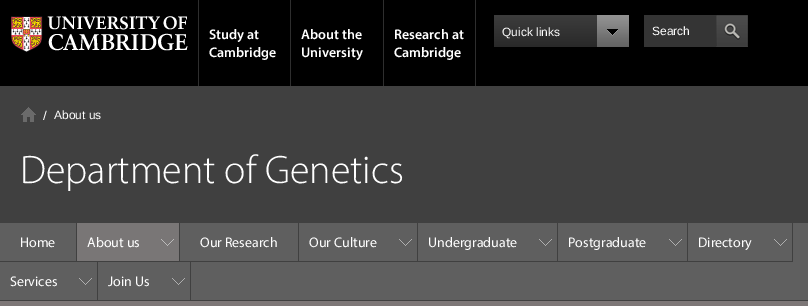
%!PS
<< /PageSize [808 306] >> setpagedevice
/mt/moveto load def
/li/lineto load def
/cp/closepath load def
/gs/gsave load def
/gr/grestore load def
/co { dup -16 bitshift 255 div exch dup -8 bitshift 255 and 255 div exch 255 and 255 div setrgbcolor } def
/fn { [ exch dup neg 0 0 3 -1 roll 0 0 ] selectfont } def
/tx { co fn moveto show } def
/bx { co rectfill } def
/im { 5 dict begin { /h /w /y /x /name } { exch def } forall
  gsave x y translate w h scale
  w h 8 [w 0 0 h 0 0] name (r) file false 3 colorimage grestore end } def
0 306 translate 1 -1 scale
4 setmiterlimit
0 0 808 306 16#000000 bx
(media/1.raw) 11 16 177 36 im
198 0 1 86 16#2E2E2E bx
290 0 1 86 16#2E2E2E bx
383 0 1 86 16#2E2E2E bx
475 0 1 86 16#2E2E2E bx
gs 494 15 mt 597 15 li 597 47 li 494 47 li cp clip newpath
<< /ShadingType 2 /ColorSpace /DeviceRGB /Coords [562 15 562 47] /Extend [true true] /Function << /FunctionType 2 /Domain [0 1] /C0 [.239 .239 .239] /C1 [.161 .161 .161] /N 1 >> >> shfill gr
(media/2.raw) 597 15 32 32 im
644 15 72 32 16#343434 bx
(media/3.raw) 716 15 32 32 im
0 86 808 136 16#404040 bx
(media/4.raw) 21 107 15 15 im
(media/5.raw) 43 110 4 10 im
191 223 617 77 16#5F5F5F bx
793 222 15 1 16#404040 bx
191 300 617 1 16#404040 bx
0 223 76 38 16#5F5F5F bx
0 222 77 1 16#404040 bx
76 222 1 40 16#404040 bx
77 223 102 38 16#797676 bx
(media/6.raw) 161 239 13 7 im
77 222 716 1 16#404040 bx
179 222 1 40 16#404040 bx
180 223 11 38 16#5F5F5F bx
298 222 1 40 16#404040 bx
191 261 108 1 16#404040 bx
(media/7.raw) 399 239 13 7 im
417 222 1 40 16#404040 bx
299 261 119 1 16#404040 bx
(media/7.raw) 539 239 13 7 im
557 222 1 40 16#404040 bx
418 261 140 1 16#404040 bx
(media/7.raw) 669 239 13 7 im
687 222 1 40 16#404040 bx
558 261 130 1 16#404040 bx
(media/7.raw) 774 239 13 7 im
792 222 1 40 16#404040 bx
688 261 105 1 16#404040 bx
0 262 97 38 16#5F5F5F bx
(media/7.raw) 79 278 13 7 im
0 261 191 1 16#404040 bx
97 261 1 40 16#404040 bx
0 300 98 1 16#404040 bx
98 262 92 38 16#5F5F5F bx
(media/7.raw) 172 278 13 7 im
190 261 1 40 16#404040 bx
98 300 93 1 16#404040 bx
0 301 808 5 16#7D7777 bx
(Study at) 209 39 /Myriad-SemiBold 14 16#FFFFFF tx
(Cambridge) 209 57 /Myriad-SemiBold 14 16#FFFFFF tx
(About the) 301 39 /Myriad-SemiBold 14 16#FFFFFF tx
(University) 301 57 /Myriad-SemiBold 14 16#FFFFFF tx
(Research at) 394 39 /Myriad-SemiBold 14 16#FFFFFF tx
(Cambridge) 394 57 /Myriad-SemiBold 14 16#FFFFFF tx
(Quick links) 502 36 /LiberationSans-Regular 12 16#FFFFFF tx
(Search) 652 35 /LiberationSans-Regular 12 16#FFFFFF tx
(About us) 54 119 /LiberationSans-Regular 12 16#FFFFFF tx
(Department of Genetics) 20 183 /Myriad-Light 40 16#FFFFFF tx
(Home) 20 247 /Myriad-Regular 14 16#FFFFFF tx
(About us) 87 247 /Myriad-Regular 14 16#FFFFFF tx
(Our Research) 200 247 /Myriad-Regular 14 16#FFFFFF tx
(Our Culture) 309 247 /Myriad-Regular 14 16#FFFFFF tx
(Undergraduate) 428 247 /Myriad-Regular 14 16#FFFFFF tx
(Postgraduate) 568 247 /Myriad-Regular 14 16#FFFFFF tx
(Directory) 698 247 /Myriad-Regular 14 16#FFFFFF tx
(Services) 10 286 /Myriad-Regular 14 16#FFFFFF tx
(Join Us) 108 286 /Myriad-Regular 14 16#FFFFFF tx
showpage
